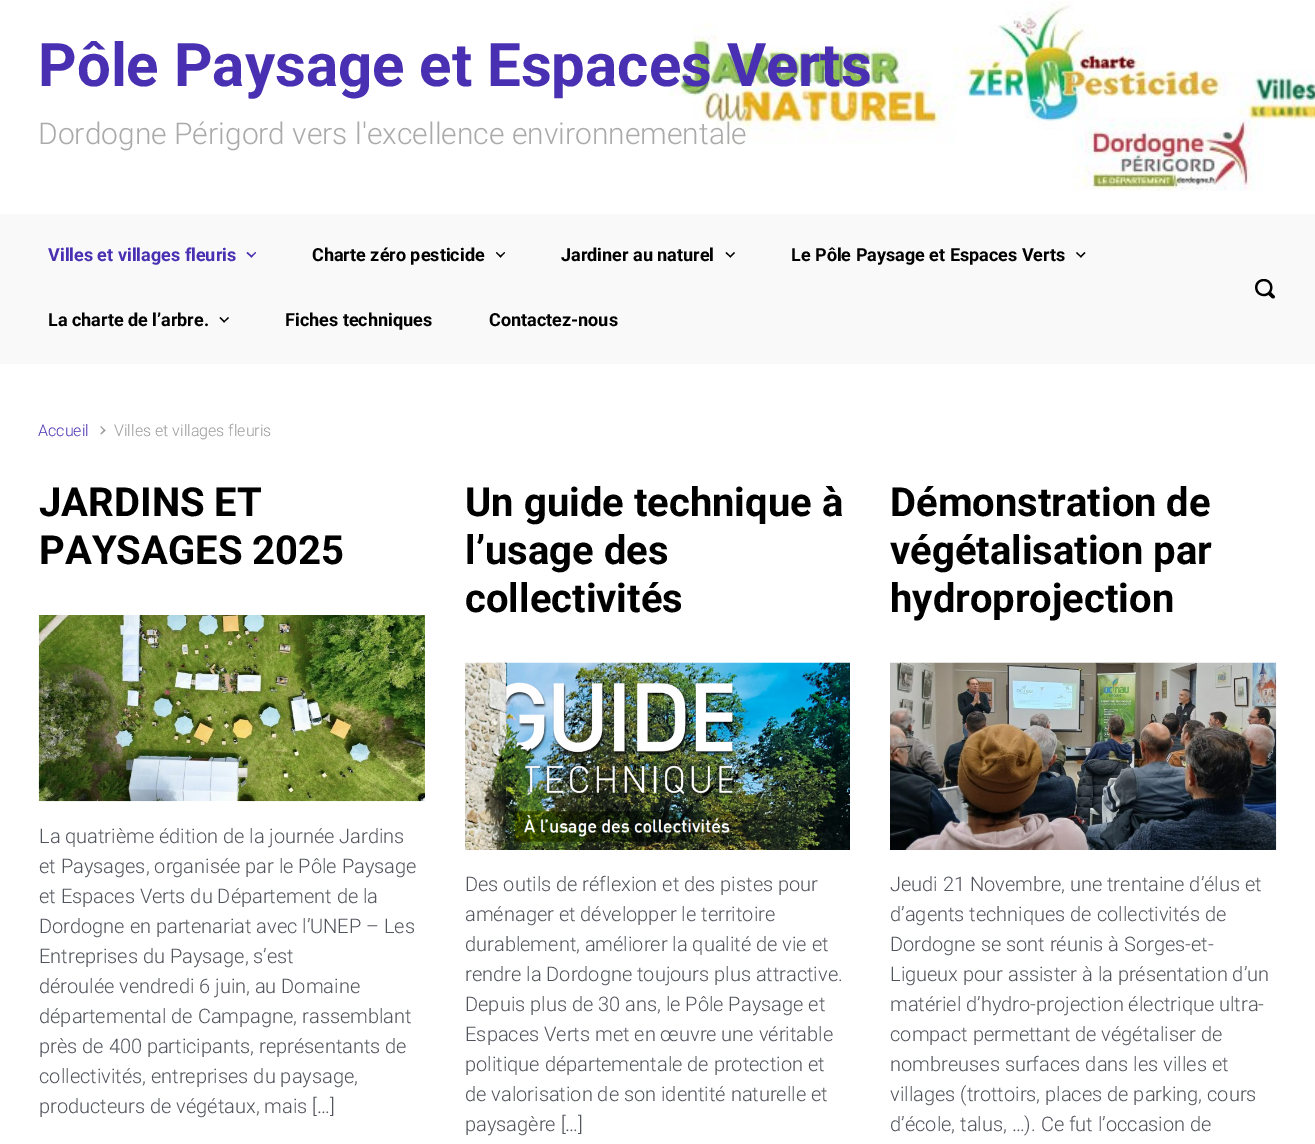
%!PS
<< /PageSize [1315 1144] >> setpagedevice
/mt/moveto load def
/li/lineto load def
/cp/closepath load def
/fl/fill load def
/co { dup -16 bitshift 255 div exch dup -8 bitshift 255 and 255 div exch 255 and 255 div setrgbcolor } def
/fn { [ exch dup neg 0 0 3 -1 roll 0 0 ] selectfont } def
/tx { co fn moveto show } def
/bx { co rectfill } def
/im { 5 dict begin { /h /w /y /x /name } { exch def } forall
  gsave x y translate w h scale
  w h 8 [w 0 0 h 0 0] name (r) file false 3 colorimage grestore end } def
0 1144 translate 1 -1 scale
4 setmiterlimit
0 0 1315 1144 16#F9F9F9 bx
0 0 1315 214 16#FFFFFF bx
(media/1.raw) 669 1 646 190 im
16#492FB1 co
255.5 252 mt 256 253 li 251.5 257.5 li 250.5 256.5 li cp fl
247.5 252 mt 252.5 256.5 li 251.5 257.5 li 246.5 253 li cp fl
16#000000 co
504.5 252 mt 505 253 li 500.5 257.5 li 499.5 256.5 li cp fl
496.5 252 mt 501.5 256.5 li 500.5 257.5 li 496 253 li cp fl
734 252 mt 735 253 li 730.5 257.5 li 729.5 256.5 li cp fl
726.5 252 mt 731 256.5 li 730.5 257.5 li 725.5 253 li cp fl
1084.5 252 mt 1085.5 253 li 1081 257.5 li 1080 256.5 li cp fl
1077 252 mt 1081.5 256.5 li 1081 257.5 li 1076 253 li cp fl
228 317 mt 229 318 li 224 322.5 li 223.5 321.5 li cp fl
220.5 317 mt 225 321.5 li 224 322.5 li 219.5 318 li cp fl
(media/2.raw) 1255 279 20 20 im
0 364 1315 780 16#FFFFFF bx
16#999999 co
100.5 427 mt 101 426 li 105.5 430.5 li 104.5 431 li cp fl
100.5 433.5 mt 104.5 429.5 li 105.5 430.5 li 101 434.5 li cp fl
(media/3.raw) 38 615 387 187 im
(media/4.raw) 465 662 385 188 im
(media/5.raw) 890 662 387 188 im
(Pôle Paysage et Espaces Verts) 38 86 /Roboto-Bold 60 16#492FB1 tx
(Dordogne Périgord vers l'excellence environnementale) 38 144 /Roboto-Light 30 16#AAAAAA tx
(Villes et villages fleuris) 48 261 /Roboto-Bold 18 16#492FB1 tx
(Charte zéro pesticide) 312 261 /Roboto-Bold 18 16#000000 tx
(Jardiner au naturel) 561 261 /Roboto-Bold 18 16#000000 tx
(Le Pôle Paysage et Espaces Verts) 791 261 /Roboto-Bold 18 16#000000 tx
(La charte de l’arbre.) 48 326 /Roboto-Bold 18 16#000000 tx
(Fiches techniques) 285 326 /Roboto-Bold 18 16#000000 tx
(Contactez-nous) 489 326 /Roboto-Bold 18 16#000000 tx
(Accueil) 38 436 /Roboto-Light 16 16#492FB1 tx
(Villes et villages fleuris) 114 436 /Roboto-Light 16 16#999999 tx
(JARDINS ET) 39 516 /Roboto-Bold 40 16#000000 tx
(PAYSAGES 2025) 39 564 /Roboto-Bold 40 16#000000 tx
(La quatrième édition de la journée Jardins) 39 843 /Roboto-Light 20 16#51545C tx
(et Paysages, organisée par le Pôle Paysage) 39 873 /Roboto-Light 20 16#51545C tx
(et Espaces Verts du Département de la) 39 903 /Roboto-Light 20 16#51545C tx
(Dordogne en partenariat avec l’UNEP – Les) 39 933 /Roboto-Light 20 16#51545C tx
(Entreprises du Paysage, s’est) 39 963 /Roboto-Light 20 16#51545C tx
(déroulée vendredi 6 juin, au Domaine) 39 993 /Roboto-Light 20 16#51545C tx
(départemental de Campagne, rassemblant) 39 1023 /Roboto-Light 20 16#51545C tx
(près de 400 participants, représentants de) 39 1053 /Roboto-Light 20 16#51545C tx
(collectivités, entreprises du paysage,) 39 1083 /Roboto-Light 20 16#51545C tx
(producteurs de végétaux, mais […]) 39 1113 /Roboto-Light 20 16#51545C tx
(Un guide technique à) 465 516 /Roboto-Bold 40 16#000000 tx
(l’usage des) 465 564 /Roboto-Bold 40 16#000000 tx
(collectivités) 465 612 /Roboto-Bold 40 16#000000 tx
(Des outils de réflexion et des pistes pour) 465 891 /Roboto-Light 20 16#51545C tx
(aménager et développer le territoire) 465 921 /Roboto-Light 20 16#51545C tx
(durablement, améliorer la qualité de vie et) 465 951 /Roboto-Light 20 16#51545C tx
(rendre la Dordogne toujours plus attractive.) 465 981 /Roboto-Light 20 16#51545C tx
(Depuis plus de 30 ans, le Pôle Paysage et) 465 1011 /Roboto-Light 20 16#51545C tx
(Espaces Verts met en œuvre une véritable) 465 1041 /Roboto-Light 20 16#51545C tx
(politique départementale de protection et) 465 1071 /Roboto-Light 20 16#51545C tx
(de valorisation de son identité naturelle et) 465 1101 /Roboto-Light 20 16#51545C tx
(paysagère […]) 465 1131 /Roboto-Light 20 16#51545C tx
(Démonstration de) 890 516 /Roboto-Bold 40 16#000000 tx
(végétalisation par) 890 564 /Roboto-Bold 40 16#000000 tx
(hydroprojection) 890 612 /Roboto-Bold 40 16#000000 tx
(Jeudi 21 Novembre, une trentaine d’élus et) 890 891 /Roboto-Light 20 16#51545C tx
(d’agents techniques de collectivités de) 890 921 /Roboto-Light 20 16#51545C tx
(Dordogne se sont réunis à Sorges-et-) 890 951 /Roboto-Light 20 16#51545C tx
(Ligueux pour assister à la présentation d’un) 890 981 /Roboto-Light 20 16#51545C tx
(matériel d’hydro-projection électrique ultra-) 890 1011 /Roboto-Light 20 16#51545C tx
(compact permettant de végétaliser de) 890 1041 /Roboto-Light 20 16#51545C tx
(nombreuses surfaces dans les villes et) 890 1071 /Roboto-Light 20 16#51545C tx
(villages \(trottoirs, places de parking, cours) 890 1101 /Roboto-Light 20 16#51545C tx
(d’école, talus, …\). Ce fut l’occasion de) 890 1131 /Roboto-Light 20 16#51545C tx
showpage
